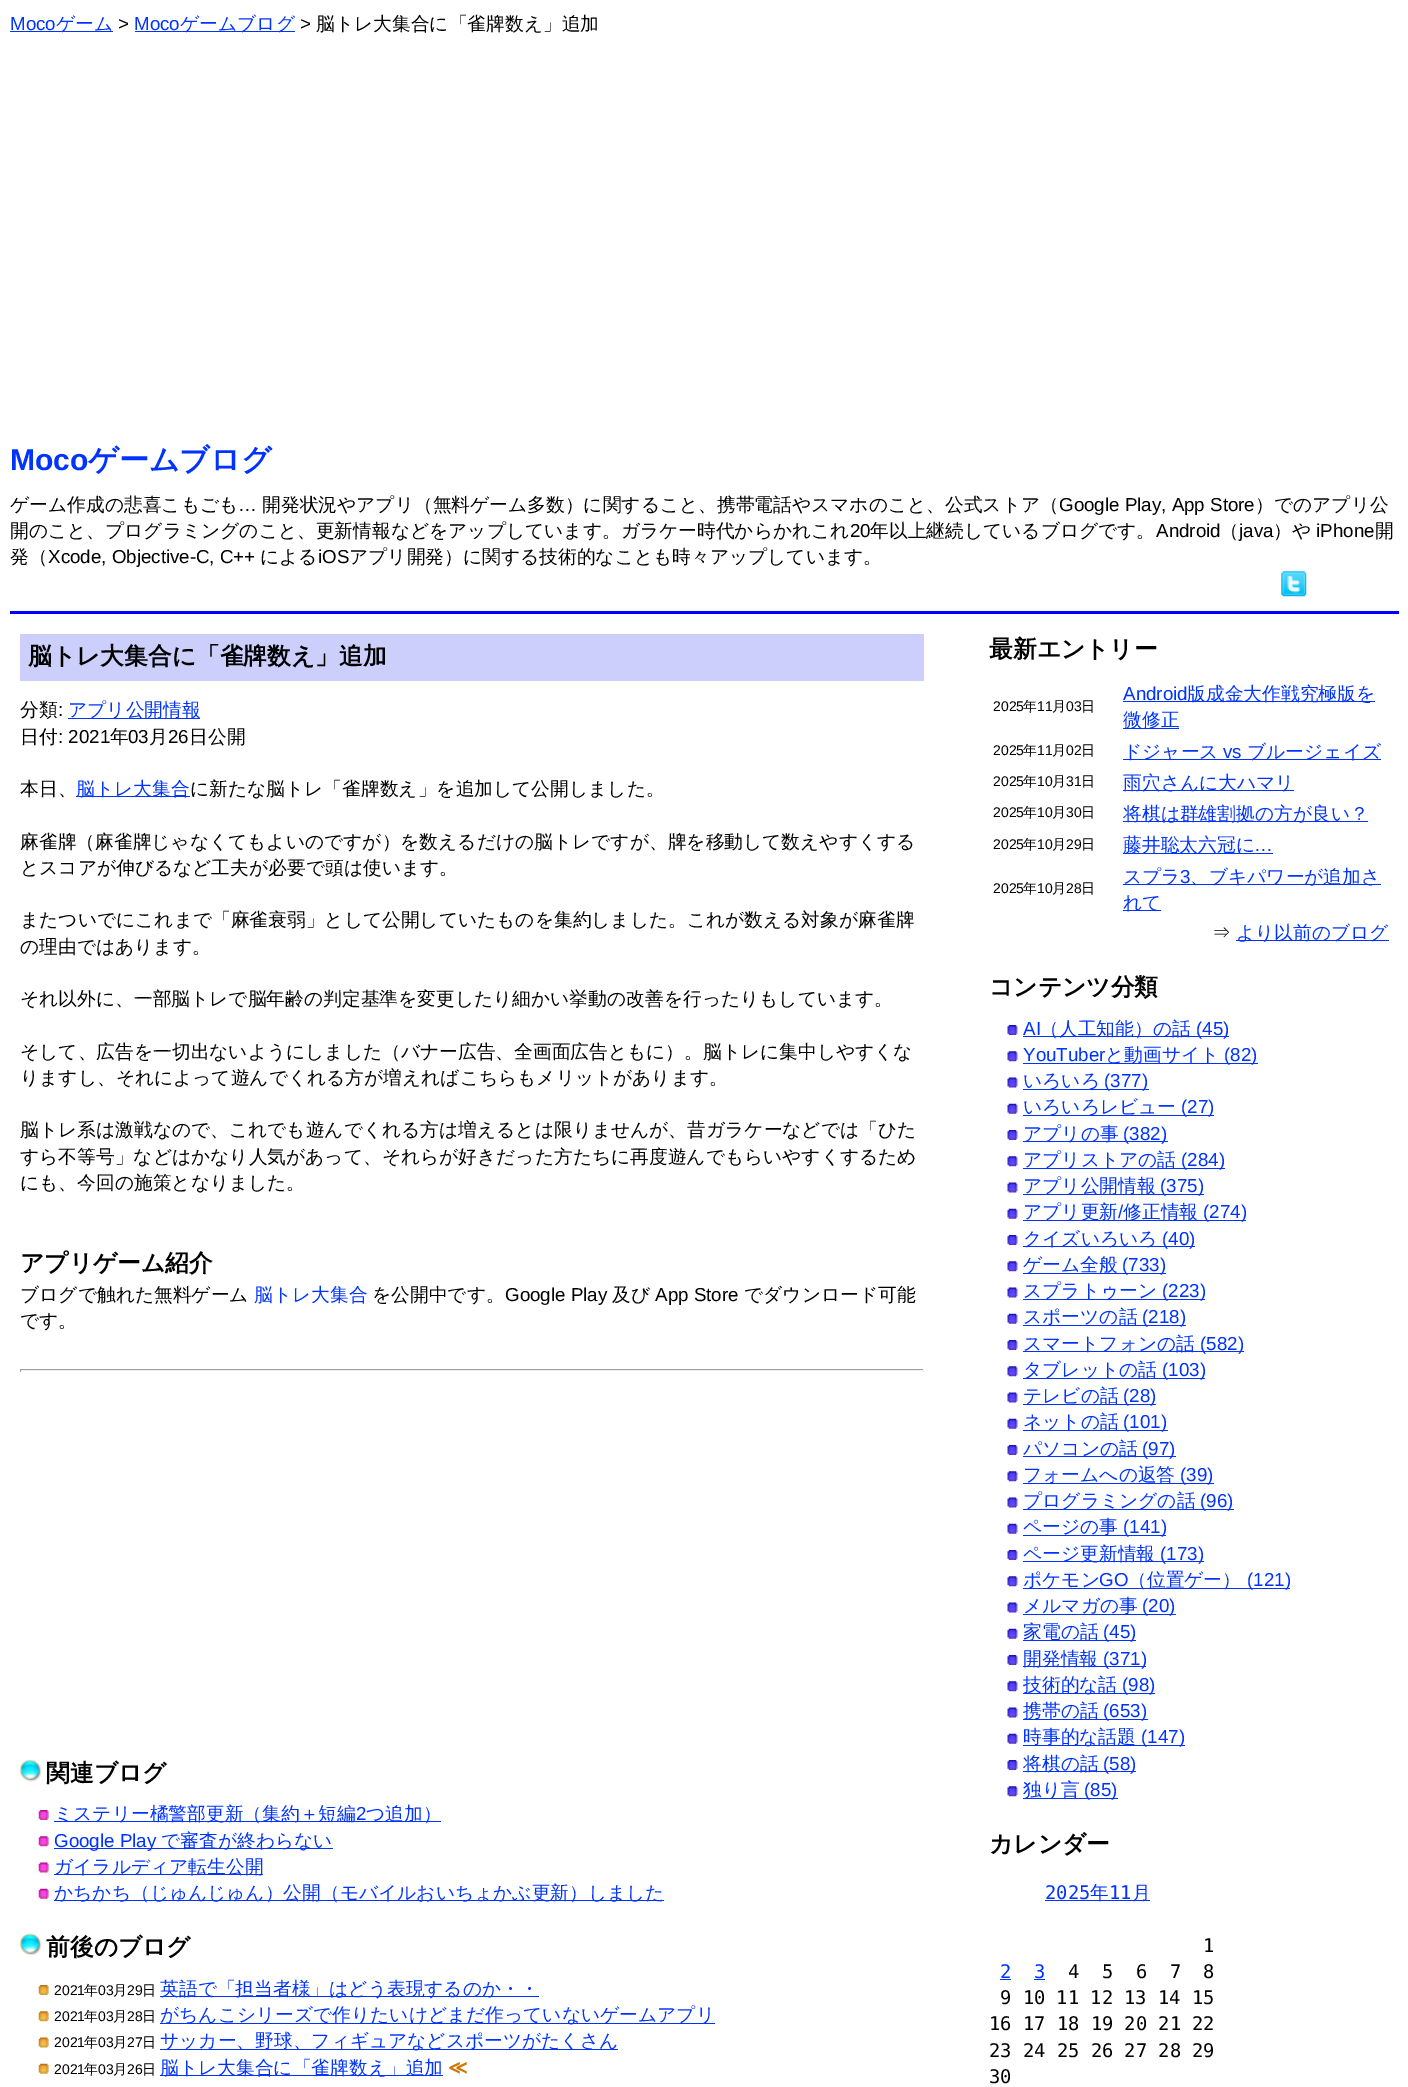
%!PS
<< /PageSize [1408 2087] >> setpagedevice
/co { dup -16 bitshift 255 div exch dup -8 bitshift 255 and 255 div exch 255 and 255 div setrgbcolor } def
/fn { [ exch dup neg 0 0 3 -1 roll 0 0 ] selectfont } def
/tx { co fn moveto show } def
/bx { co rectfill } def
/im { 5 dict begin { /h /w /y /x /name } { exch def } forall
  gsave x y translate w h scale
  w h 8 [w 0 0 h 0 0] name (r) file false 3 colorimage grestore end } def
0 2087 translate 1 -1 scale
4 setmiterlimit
0 0 1408 2087 16#FFFFFF bx
10 31 103 1 16#0033FF bx
135 31 160 1 16#0033FF bx
(media/1.raw) 1281 571 26 26 im
10 611 1389 3 16#0000FF bx
20 634 904 47 16#CCCFFC bx
68 718 132 1 16#0033FF bx
76 796 114 1 16#0033FF bx
20 1369 904 1 16#9F9F9F bx
923 1369 1 3 16#EEEEEE bx
20 1370 904 1 16#EEEEEE bx
20 1369 1 3 16#9F9F9F bx
(media/2.raw) 20 1760 22 22 im
(media/3.raw) 38 1810 11 10 im
54 1821 387 1 16#0033FF bx
(media/4.raw) 38 1836 11 11 im
54 1848 279 1 16#0033FF bx
(media/5.raw) 38 1862 11 11 im
54 1874 209 1 16#0033FF bx
(media/6.raw) 38 1888 11 11 im
54 1900 610 1 16#0033FF bx
(media/7.raw) 20 1933 22 22 im
(media/8.raw) 38 1985 11 10 im
160 1996 379 1 16#0033FF bx
(media/9.raw) 38 2011 11 11 im
160 2023 555 1 16#0033FF bx
(media/10.raw) 38 2037 11 11 im
160 2049 458 1 16#0033FF bx
(media/11.raw) 38 2063 11 11 im
160 2075 283 1 16#0033FF bx
1123 701 252 1 16#0033FF bx
1123 728 56 1 16#0033FF bx
1123 759 258 1 16#0033FF bx
1123 790 171 1 16#0033FF bx
1123 821 245 1 16#0033FF bx
1123 853 150 1 16#0033FF bx
1123 884 258 1 16#0033FF bx
1123 910 38 1 16#0033FF bx
1236 940 153 1 16#0033FF bx
(media/12.raw) 1007 1025 11 10 im
1023 1036 206 1 16#0033FF bx
(media/13.raw) 1007 1051 11 11 im
1023 1063 235 1 16#0033FF bx
(media/14.raw) 1007 1077 11 11 im
1023 1089 126 1 16#0033FF bx
(media/15.raw) 1007 1103 11 11 im
1023 1115 191 1 16#0033FF bx
(media/16.raw) 1007 1130 11 10 im
1023 1141 145 1 16#0033FF bx
(media/13.raw) 1007 1156 11 11 im
1023 1168 202 1 16#0033FF bx
(media/14.raw) 1007 1182 11 11 im
1023 1194 181 1 16#0033FF bx
(media/15.raw) 1007 1208 11 11 im
1023 1220 223 1 16#0033FF bx
(media/16.raw) 1007 1235 11 10 im
1023 1246 172 1 16#0033FF bx
(media/13.raw) 1007 1261 11 11 im
1023 1273 143 1 16#0033FF bx
(media/14.raw) 1007 1287 11 11 im
1023 1299 182 1 16#0033FF bx
(media/15.raw) 1007 1313 11 11 im
1023 1325 163 1 16#0033FF bx
(media/16.raw) 1007 1340 11 10 im
1023 1351 221 1 16#0033FF bx
(media/13.raw) 1007 1366 11 11 im
1023 1378 182 1 16#0033FF bx
(media/14.raw) 1007 1392 11 11 im
1023 1404 133 1 16#0033FF bx
(media/15.raw) 1007 1418 11 11 im
1023 1430 145 1 16#0033FF bx
(media/16.raw) 1007 1445 11 10 im
1023 1456 153 1 16#0033FF bx
(media/13.raw) 1007 1471 11 11 im
1023 1483 191 1 16#0033FF bx
(media/14.raw) 1007 1497 11 11 im
1023 1509 211 1 16#0033FF bx
(media/15.raw) 1007 1523 11 11 im
1023 1535 143 1 16#0033FF bx
(media/16.raw) 1007 1550 11 10 im
1023 1561 181 1 16#0033FF bx
(media/13.raw) 1007 1576 11 11 im
1023 1588 267 1 16#0033FF bx
(media/14.raw) 1007 1602 11 11 im
1023 1614 153 1 16#0033FF bx
(media/15.raw) 1007 1628 11 11 im
1023 1640 113 1 16#0033FF bx
(media/16.raw) 1007 1655 11 10 im
1023 1666 123 1 16#0033FF bx
(media/13.raw) 1007 1681 11 11 im
1023 1693 132 1 16#0033FF bx
(media/14.raw) 1007 1707 11 11 im
1023 1719 125 1 16#0033FF bx
(media/15.raw) 1007 1733 11 11 im
1023 1745 162 1 16#0033FF bx
(media/16.raw) 1007 1760 11 10 im
1023 1771 113 1 16#0033FF bx
(media/13.raw) 1007 1786 11 11 im
1023 1798 95 1 16#0033FF bx
1045 1900 105 1 16#0033FF bx
1000 1979 11 1 16#0033FF bx
1034 1979 11 1 16#0033FF bx
(Moco) 10 30 /LiberationSans-Regular 18.75 16#0033FF tx
(ゲーム) 56 30 /WenQuanYiZenHei-Medium 18.75 16#0033FF tx
(>) 118 30 /LiberationSans-Regular 18.75 16#000000 tx
(Moco) 134 30 /LiberationSans-Regular 18.75 16#0033FF tx
(ゲームブログ) 180 30 /WenQuanYiZenHei-Medium 18.75 16#0033FF tx
(>) 300 30 /LiberationSans-Regular 18.75 16#000000 tx
(脳トレ大集合に「雀牌数え」追加) 316 30 /WenQuanYiZenHei-Medium 18.75 16#000000 tx
(Moco) 10 470 /LiberationSans-Bold 30 16#0033FF tx
(ゲームブログ) 88 470 /WenQuanYiZenHei-Bold 30 16#0033FF tx
(ゲーム作成の悲喜こもごも) 10 511 /WenQuanYiZenHei-Medium 18.75 16#000000 tx
(…) 238 511 /LiberationSans-Regular 18.75 16#000000 tx
(開発状況やアプリ（無料ゲーム多数）に関すること、携帯電話やスマホのこと、公式ストア（) 262 511 /WenQuanYiZenHei-Medium 18.75 16#000000 tx
(Google Play, App Store) 1059 511 /LiberationSans-Regular 18.75 16#000000 tx
(）でのアプリ公) 1255 511 /WenQuanYiZenHei-Medium 18.75 16#000000 tx
(開のこと、プログラミングのこと、更新情報などをアップしています。ガラケー時代からかれこれ) 10 537 /WenQuanYiZenHei-Medium 18.75 16#000000 tx
(20) 850 537 /LiberationSans-Regular 18.75 16#000000 tx
(年以上継続しているブログです。) 870 537 /WenQuanYiZenHei-Medium 18.75 16#000000 tx
(Android) 1156 537 /LiberationSans-Regular 18.75 16#000000 tx
(（) 1220 537 /WenQuanYiZenHei-Medium 18.75 16#000000 tx
(java) 1239 537 /LiberationSans-Regular 18.75 16#000000 tx
(）や) 1273 537 /WenQuanYiZenHei-Medium 18.75 16#000000 tx
(iPhone) 1316 537 /LiberationSans-Regular 18.75 16#000000 tx
(開) 1375 537 /WenQuanYiZenHei-Medium 18.75 16#000000 tx
(発（) 10 563 /WenQuanYiZenHei-Medium 18.75 16#000000 tx
(Xcode, Objective-C, C++) 48 563 /LiberationSans-Regular 18.75 16#000000 tx
(による) 260 563 /WenQuanYiZenHei-Medium 18.75 16#000000 tx
(iOS) 318 563 /LiberationSans-Regular 18.75 16#000000 tx
(アプリ開発）に関する技術的なことも時々アップしています。) 349 563 /WenQuanYiZenHei-Medium 18.75 16#000000 tx
(脳トレ大集合に「雀牌数え」追加) 28 664 /WenQuanYiZenHei-Bold 23.75 16#000000 tx
(分類) 20 716 /WenQuanYiZenHei-Medium 18.75 16#000000 tx
(:) 58 716 /LiberationSans-Regular 18.75 16#000000 tx
(アプリ公開情報) 68 716 /WenQuanYiZenHei-Medium 18.75 16#0033FF tx
(日付) 20 743 /WenQuanYiZenHei-Medium 18.75 16#000000 tx
(: 2021) 58 743 /LiberationSans-Regular 18.75 16#000000 tx
(年) 110 743 /WenQuanYiZenHei-Medium 18.75 16#000000 tx
(03) 128 743 /LiberationSans-Regular 18.75 16#000000 tx
(月) 149 743 /WenQuanYiZenHei-Medium 18.75 16#000000 tx
(26) 168 743 /LiberationSans-Regular 18.75 16#000000 tx
(日公開) 189 743 /WenQuanYiZenHei-Medium 18.75 16#000000 tx
(本日、) 20 795 /WenQuanYiZenHei-Medium 18.75 16#000000 tx
(脳トレ大集合) 76 795 /WenQuanYiZenHei-Medium 18.75 16#0033FF tx
(に新たな脳トレ「雀牌数え」を追加して公開しました。) 190 795 /WenQuanYiZenHei-Medium 18.75 16#000000 tx
(麻雀牌（麻雀牌じゃなくてもよいのですが）を数えるだけの脳トレですが、牌を移動して数えやすくする) 20 848 /WenQuanYiZenHei-Medium 18.75 16#000000 tx
(とスコアが伸びるなど工夫が必要で頭は使います。) 20 874 /WenQuanYiZenHei-Medium 18.75 16#000000 tx
(またついでにこれまで「麻雀衰弱」として公開していたものを集約しました。これが数える対象が麻雀牌) 20 926 /WenQuanYiZenHei-Medium 18.75 16#000000 tx
(の理由ではあります。) 20 953 /WenQuanYiZenHei-Medium 18.75 16#000000 tx
(それ以外に、一部脳トレで脳年齢の判定基準を変更したり細かい挙動の改善を行ったりもしています。) 20 1005 /WenQuanYiZenHei-Medium 18.75 16#000000 tx
(そして、広告を一切出ないようにしました（バナー広告、全画面広告ともに）。脳トレに集中しやすくな) 20 1058 /WenQuanYiZenHei-Medium 18.75 16#000000 tx
(りますし、それによって遊んでくれる方が増えればこちらもメリットがあります。) 20 1084 /WenQuanYiZenHei-Medium 18.75 16#000000 tx
(脳トレ系は激戦なので、これでも遊んでくれる方は増えるとは限りませんが、昔ガラケーなどでは「ひた) 20 1136 /WenQuanYiZenHei-Medium 18.75 16#000000 tx
(すら不等号」などはかなり人気があって、それらが好きだった方たちに再度遊んでもらいやすくするため) 20 1163 /WenQuanYiZenHei-Medium 18.75 16#000000 tx
(にも、今回の施策となりました。) 20 1189 /WenQuanYiZenHei-Medium 18.75 16#000000 tx
(アプリゲーム紹介) 20 1271 /WenQuanYiZenHei-Bold 23.75 16#000000 tx
(ブログで触れた無料ゲーム) 20 1301 /WenQuanYiZenHei-Medium 18.75 16#000000 tx
(脳トレ大集合) 254 1301 /WenQuanYiZenHei-Medium 18.75 16#0033FF tx
(を公開中です。) 372 1301 /WenQuanYiZenHei-Medium 18.75 16#000000 tx
(Google Play) 505 1301 /LiberationSans-Regular 18.75 16#000000 tx
(及び) 612 1301 /WenQuanYiZenHei-Medium 18.75 16#000000 tx
(App Store) 655 1301 /LiberationSans-Regular 18.75 16#000000 tx
(でダウンロード可能) 744 1301 /WenQuanYiZenHei-Medium 18.75 16#000000 tx
(です。) 20 1327 /WenQuanYiZenHei-Medium 18.75 16#000000 tx
(関連ブログ) 46 1781 /WenQuanYiZenHei-Bold 23.75 16#000000 tx
(ミステリー橘警部更新（集約＋短編) 54 1820 /WenQuanYiZenHei-Medium 18.75 16#0033FF tx
(2) 356 1820 /LiberationSans-Regular 18.75 16#0033FF tx
(つ追加）) 366 1820 /WenQuanYiZenHei-Medium 18.75 16#0033FF tx
(Google Play) 54 1847 /LiberationSans-Regular 18.75 16#0033FF tx
(で審査が終わらない) 161 1847 /WenQuanYiZenHei-Medium 18.75 16#0033FF tx
(ガイラルディア転生公開) 54 1873 /WenQuanYiZenHei-Medium 18.75 16#0033FF tx
(かちかち（じゅんじゅん）公開（モバイルおいちょかぶ更新）しました) 54 1899 /WenQuanYiZenHei-Medium 18.75 16#0033FF tx
(前後のブログ) 46 1955 /WenQuanYiZenHei-Bold 23.75 16#000000 tx
(2021) 54 1995 /LiberationSans-Regular 14 16#000000 tx
(年) 84 1995 /WenQuanYiZenHei-Medium 14 16#000000 tx
(03) 98 1995 /LiberationSans-Regular 14 16#000000 tx
(月) 113 1995 /WenQuanYiZenHei-Medium 14 16#000000 tx
(29) 127 1995 /LiberationSans-Regular 14 16#000000 tx
(日) 142 1995 /WenQuanYiZenHei-Medium 14 16#000000 tx
(英語で「担当者様」はどう表現するのか・・) 160 1995 /WenQuanYiZenHei-Medium 18.75 16#0033FF tx
(2021) 54 2021 /LiberationSans-Regular 14 16#000000 tx
(年) 84 2021 /WenQuanYiZenHei-Medium 14 16#000000 tx
(03) 98 2021 /LiberationSans-Regular 14 16#000000 tx
(月) 113 2021 /WenQuanYiZenHei-Medium 14 16#000000 tx
(28) 127 2021 /LiberationSans-Regular 14 16#000000 tx
(日) 142 2021 /WenQuanYiZenHei-Medium 14 16#000000 tx
(がちんこシリーズで作りたいけどまだ作っていないゲームアプリ) 160 2021 /WenQuanYiZenHei-Medium 18.75 16#0033FF tx
(2021) 54 2047 /LiberationSans-Regular 14 16#000000 tx
(年) 84 2047 /WenQuanYiZenHei-Medium 14 16#000000 tx
(03) 98 2047 /LiberationSans-Regular 14 16#000000 tx
(月) 113 2047 /WenQuanYiZenHei-Medium 14 16#000000 tx
(27) 127 2047 /LiberationSans-Regular 14 16#000000 tx
(日) 142 2047 /WenQuanYiZenHei-Medium 14 16#000000 tx
(サッカー、野球、フィギュアなどスポーツがたくさん) 160 2047 /WenQuanYiZenHei-Medium 18.75 16#0033FF tx
(2021) 54 2074 /LiberationSans-Regular 14 16#000000 tx
(年) 84 2074 /WenQuanYiZenHei-Medium 14 16#000000 tx
(03) 98 2074 /LiberationSans-Regular 14 16#000000 tx
(月) 113 2074 /WenQuanYiZenHei-Medium 14 16#000000 tx
(26) 127 2074 /LiberationSans-Regular 14 16#000000 tx
(日) 142 2074 /WenQuanYiZenHei-Medium 14 16#000000 tx
(脳トレ大集合に「雀牌数え」追加) 160 2074 /WenQuanYiZenHei-Medium 18.75 16#0033FF tx
(≪) 448 2074 /DejaVuSans-Bold 18.75 16#CC7700 tx
(最新エントリー) 989 657 /WenQuanYiZenHei-Bold 23.75 16#000000 tx
(2025) 993 711 /LiberationSans-Regular 14 16#000000 tx
(年) 1023 711 /WenQuanYiZenHei-Medium 14 16#000000 tx
(11) 1037 711 /LiberationSans-Regular 14 16#000000 tx
(月) 1052 711 /WenQuanYiZenHei-Medium 14 16#000000 tx
(03) 1066 711 /LiberationSans-Regular 14 16#000000 tx
(日) 1081 711 /WenQuanYiZenHei-Medium 14 16#000000 tx
(Android) 1123 700 /LiberationSans-Regular 18.75 16#0033FF tx
(版成金大作戦究極版を) 1187 700 /WenQuanYiZenHei-Medium 18.75 16#0033FF tx
(微修正) 1123 726 /WenQuanYiZenHei-Medium 18.75 16#0033FF tx
(2025) 993 755 /LiberationSans-Regular 14 16#000000 tx
(年) 1023 755 /WenQuanYiZenHei-Medium 14 16#000000 tx
(11) 1037 755 /LiberationSans-Regular 14 16#000000 tx
(月) 1052 755 /WenQuanYiZenHei-Medium 14 16#000000 tx
(02) 1066 755 /LiberationSans-Regular 14 16#000000 tx
(日) 1081 755 /WenQuanYiZenHei-Medium 14 16#000000 tx
(ドジャース) 1123 758 /WenQuanYiZenHei-Medium 18.75 16#0033FF tx
(vs) 1223 758 /LiberationSans-Regular 18.75 16#0033FF tx
(ブルージェイズ) 1247 758 /WenQuanYiZenHei-Medium 18.75 16#0033FF tx
(2025) 993 786 /LiberationSans-Regular 14 16#000000 tx
(年) 1023 786 /WenQuanYiZenHei-Medium 14 16#000000 tx
(10) 1037 786 /LiberationSans-Regular 14 16#000000 tx
(月) 1052 786 /WenQuanYiZenHei-Medium 14 16#000000 tx
(31) 1066 786 /LiberationSans-Regular 14 16#000000 tx
(日) 1081 786 /WenQuanYiZenHei-Medium 14 16#000000 tx
(雨穴さんに大ハマリ) 1123 789 /WenQuanYiZenHei-Medium 18.75 16#0033FF tx
(2025) 993 817 /LiberationSans-Regular 14 16#000000 tx
(年) 1023 817 /WenQuanYiZenHei-Medium 14 16#000000 tx
(10) 1037 817 /LiberationSans-Regular 14 16#000000 tx
(月) 1052 817 /WenQuanYiZenHei-Medium 14 16#000000 tx
(30) 1066 817 /LiberationSans-Regular 14 16#000000 tx
(日) 1081 817 /WenQuanYiZenHei-Medium 14 16#000000 tx
(将棋は群雄割拠の方が良い？) 1123 820 /WenQuanYiZenHei-Medium 18.75 16#0033FF tx
(2025) 993 849 /LiberationSans-Regular 14 16#000000 tx
(年) 1023 849 /WenQuanYiZenHei-Medium 14 16#000000 tx
(10) 1037 849 /LiberationSans-Regular 14 16#000000 tx
(月) 1052 849 /WenQuanYiZenHei-Medium 14 16#000000 tx
(29) 1066 849 /LiberationSans-Regular 14 16#000000 tx
(日) 1081 849 /WenQuanYiZenHei-Medium 14 16#000000 tx
(藤井聡太六冠に) 1123 851 /WenQuanYiZenHei-Medium 18.75 16#0033FF tx
(…) 1254 851 /LiberationSans-Regular 18.75 16#0033FF tx
(2025) 993 893 /LiberationSans-Regular 14 16#000000 tx
(年) 1023 893 /WenQuanYiZenHei-Medium 14 16#000000 tx
(10) 1037 893 /LiberationSans-Regular 14 16#000000 tx
(月) 1052 893 /WenQuanYiZenHei-Medium 14 16#000000 tx
(28) 1066 893 /LiberationSans-Regular 14 16#000000 tx
(日) 1081 893 /WenQuanYiZenHei-Medium 14 16#000000 tx
(スプラ) 1123 883 /WenQuanYiZenHei-Medium 18.75 16#0033FF tx
(3) 1180 883 /LiberationSans-Regular 18.75 16#0033FF tx
(、ブキパワーが追加さ) 1190 883 /WenQuanYiZenHei-Medium 18.75 16#0033FF tx
(れて) 1123 909 /WenQuanYiZenHei-Medium 18.75 16#0033FF tx
(⇒) 1212 939 /WenQuanYiZenHei-Medium 18.75 16#000000 tx
(より以前のブログ) 1236 939 /WenQuanYiZenHei-Medium 18.75 16#0033FF tx
(コンテンツ分類) 989 995 /WenQuanYiZenHei-Bold 23.75 16#000000 tx
(AI) 1023 1035 /LiberationSans-Regular 18.75 16#0033FF tx
(（人工知能）の話) 1040 1035 /WenQuanYiZenHei-Medium 18.75 16#0033FF tx
(\(45\)) 1196 1035 /LiberationSans-Regular 18.75 16#0033FF tx
(YouTuber) 1023 1061 /LiberationSans-Regular 18.75 16#0033FF tx
(と動画サイト) 1105 1061 /WenQuanYiZenHei-Medium 18.75 16#0033FF tx
(\(82\)) 1224 1061 /LiberationSans-Regular 18.75 16#0033FF tx
(いろいろ) 1023 1087 /WenQuanYiZenHei-Medium 18.75 16#0033FF tx
(\(377\)) 1104 1087 /LiberationSans-Regular 18.75 16#0033FF tx
(いろいろレビュー) 1023 1113 /WenQuanYiZenHei-Medium 18.75 16#0033FF tx
(\(27\)) 1181 1113 /LiberationSans-Regular 18.75 16#0033FF tx
(アプリの事) 1023 1140 /WenQuanYiZenHei-Medium 18.75 16#0033FF tx
(\(382\)) 1123 1140 /LiberationSans-Regular 18.75 16#0033FF tx
(アプリストアの話) 1023 1166 /WenQuanYiZenHei-Medium 18.75 16#0033FF tx
(\(284\)) 1181 1166 /LiberationSans-Regular 18.75 16#0033FF tx
(アプリ公開情報) 1023 1192 /WenQuanYiZenHei-Medium 18.75 16#0033FF tx
(\(375\)) 1160 1192 /LiberationSans-Regular 18.75 16#0033FF tx
(アプリ更新) 1023 1218 /WenQuanYiZenHei-Medium 18.75 16#0033FF tx
(/) 1118 1218 /LiberationSans-Regular 18.75 16#0033FF tx
(修正情報) 1123 1218 /WenQuanYiZenHei-Medium 18.75 16#0033FF tx
(\(274\)) 1203 1218 /LiberationSans-Regular 18.75 16#0033FF tx
(クイズいろいろ) 1023 1245 /WenQuanYiZenHei-Medium 18.75 16#0033FF tx
(\(40\)) 1162 1245 /LiberationSans-Regular 18.75 16#0033FF tx
(ゲーム全般) 1023 1271 /WenQuanYiZenHei-Medium 18.75 16#0033FF tx
(\(733\)) 1122 1271 /LiberationSans-Regular 18.75 16#0033FF tx
(スプラトゥーン) 1023 1297 /WenQuanYiZenHei-Medium 18.75 16#0033FF tx
(\(223\)) 1162 1297 /LiberationSans-Regular 18.75 16#0033FF tx
(スポーツの話) 1023 1323 /WenQuanYiZenHei-Medium 18.75 16#0033FF tx
(\(218\)) 1142 1323 /LiberationSans-Regular 18.75 16#0033FF tx
(スマートフォンの話) 1023 1350 /WenQuanYiZenHei-Medium 18.75 16#0033FF tx
(\(582\)) 1200 1350 /LiberationSans-Regular 18.75 16#0033FF tx
(タブレットの話) 1023 1376 /WenQuanYiZenHei-Medium 18.75 16#0033FF tx
(\(103\)) 1162 1376 /LiberationSans-Regular 18.75 16#0033FF tx
(テレビの話) 1023 1402 /WenQuanYiZenHei-Medium 18.75 16#0033FF tx
(\(28\)) 1123 1402 /LiberationSans-Regular 18.75 16#0033FF tx
(ネットの話) 1023 1428 /WenQuanYiZenHei-Medium 18.75 16#0033FF tx
(\(101\)) 1123 1428 /LiberationSans-Regular 18.75 16#0033FF tx
(パソコンの話) 1023 1455 /WenQuanYiZenHei-Medium 18.75 16#0033FF tx
(\(97\)) 1142 1455 /LiberationSans-Regular 18.75 16#0033FF tx
(フォームへの返答) 1023 1481 /WenQuanYiZenHei-Medium 18.75 16#0033FF tx
(\(39\)) 1180 1481 /LiberationSans-Regular 18.75 16#0033FF tx
(プログラミングの話) 1023 1507 /WenQuanYiZenHei-Medium 18.75 16#0033FF tx
(\(96\)) 1200 1507 /LiberationSans-Regular 18.75 16#0033FF tx
(ページの事) 1023 1533 /WenQuanYiZenHei-Medium 18.75 16#0033FF tx
(\(141\)) 1123 1533 /LiberationSans-Regular 18.75 16#0033FF tx
(ページ更新情報) 1023 1560 /WenQuanYiZenHei-Medium 18.75 16#0033FF tx
(\(173\)) 1160 1560 /LiberationSans-Regular 18.75 16#0033FF tx
(ポケモン) 1023 1586 /WenQuanYiZenHei-Medium 18.75 16#0033FF tx
(GO) 1099 1586 /LiberationSans-Regular 18.75 16#0033FF tx
(（位置ゲー）) 1128 1586 /WenQuanYiZenHei-Medium 18.75 16#0033FF tx
(\(121\)) 1247 1586 /LiberationSans-Regular 18.75 16#0033FF tx
(メルマガの事) 1023 1612 /WenQuanYiZenHei-Medium 18.75 16#0033FF tx
(\(20\)) 1142 1612 /LiberationSans-Regular 18.75 16#0033FF tx
(家電の話) 1023 1638 /WenQuanYiZenHei-Medium 18.75 16#0033FF tx
(\(45\)) 1103 1638 /LiberationSans-Regular 18.75 16#0033FF tx
(開発情報) 1023 1665 /WenQuanYiZenHei-Medium 18.75 16#0033FF tx
(\(371\)) 1103 1665 /LiberationSans-Regular 18.75 16#0033FF tx
(技術的な話) 1023 1691 /WenQuanYiZenHei-Medium 18.75 16#0033FF tx
(\(98\)) 1122 1691 /LiberationSans-Regular 18.75 16#0033FF tx
(携帯の話) 1023 1717 /WenQuanYiZenHei-Medium 18.75 16#0033FF tx
(\(653\)) 1103 1717 /LiberationSans-Regular 18.75 16#0033FF tx
(時事的な話題) 1023 1743 /WenQuanYiZenHei-Medium 18.75 16#0033FF tx
(\(147\)) 1141 1743 /LiberationSans-Regular 18.75 16#0033FF tx
(将棋の話) 1023 1770 /WenQuanYiZenHei-Medium 18.75 16#0033FF tx
(\(58\)) 1103 1770 /LiberationSans-Regular 18.75 16#0033FF tx
(独り言) 1023 1796 /WenQuanYiZenHei-Medium 18.75 16#0033FF tx
(\(85\)) 1084 1796 /LiberationSans-Regular 18.75 16#0033FF tx
(カレンダー) 989 1852 /WenQuanYiZenHei-Bold 23.75 16#000000 tx
(2025) 1045 1899 /DejaVuSansMono-Regular 18.75 16#0033FF tx
(年) 1090 1899 /WenQuanYiZenHei-Medium 18.75 16#0033FF tx
(11) 1109 1899 /DejaVuSansMono-Regular 18.75 16#0033FF tx
(月) 1132 1899 /WenQuanYiZenHei-Medium 18.75 16#0033FF tx
(1) 1203 1952 /DejaVuSansMono-Regular 18.75 16#000000 tx
(2) 1000 1978 /DejaVuSansMono-Regular 18.75 16#0033FF tx
(3) 1034 1978 /DejaVuSansMono-Regular 18.75 16#0033FF tx
(4  5  6  7  8) 1068 1978 /DejaVuSansMono-Regular 18.75 16#000000 tx
(9 10 11 12 13 14 15) 1000 2004 /DejaVuSansMono-Regular 18.75 16#000000 tx
(16 17 18 19 20 21 22) 989 2030 /DejaVuSansMono-Regular 18.75 16#000000 tx
(23 24 25 26 27 28 29) 989 2057 /DejaVuSansMono-Regular 18.75 16#000000 tx
(30) 989 2083 /DejaVuSansMono-Regular 18.75 16#000000 tx
showpage
